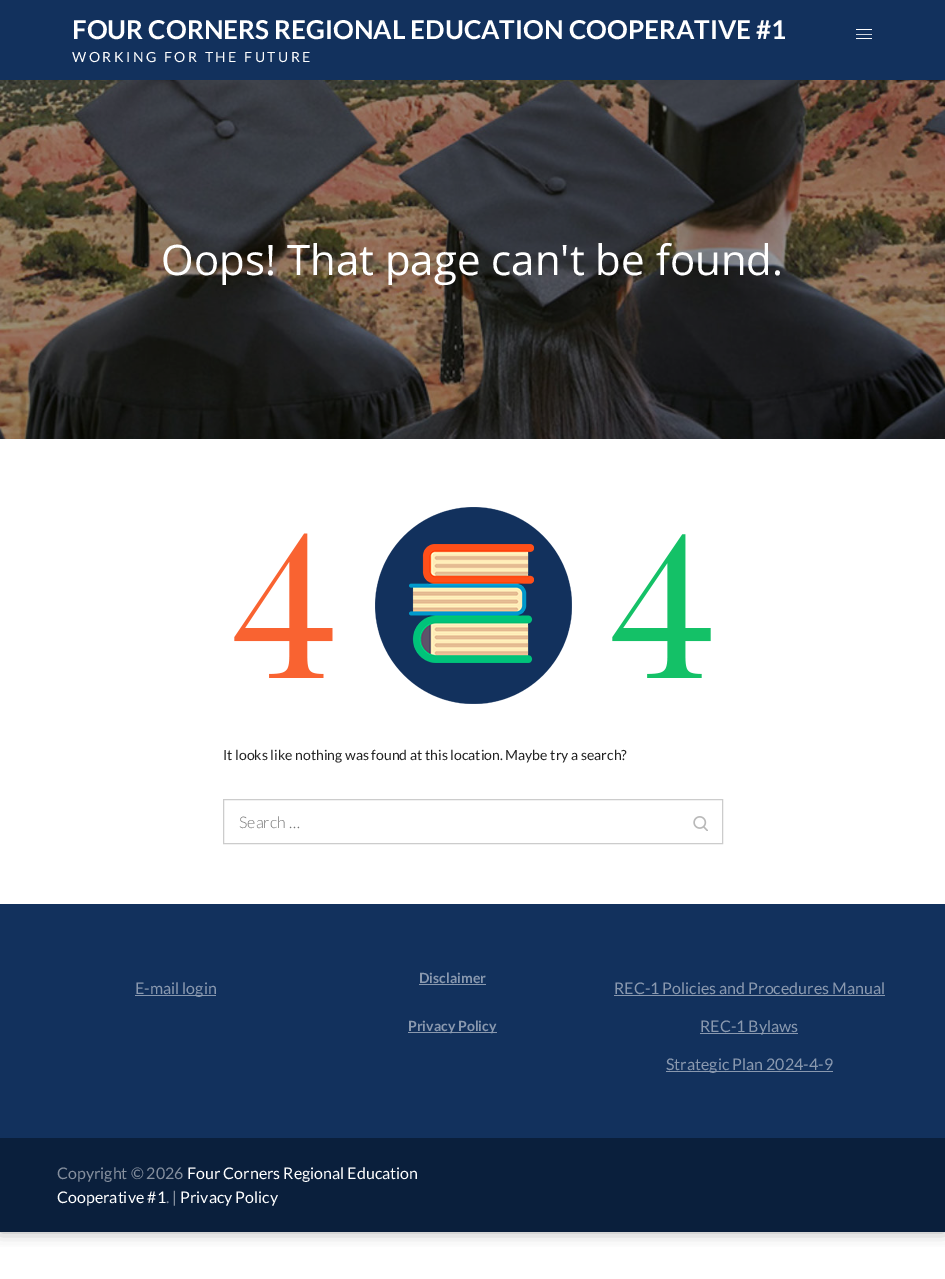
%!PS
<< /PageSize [945 1279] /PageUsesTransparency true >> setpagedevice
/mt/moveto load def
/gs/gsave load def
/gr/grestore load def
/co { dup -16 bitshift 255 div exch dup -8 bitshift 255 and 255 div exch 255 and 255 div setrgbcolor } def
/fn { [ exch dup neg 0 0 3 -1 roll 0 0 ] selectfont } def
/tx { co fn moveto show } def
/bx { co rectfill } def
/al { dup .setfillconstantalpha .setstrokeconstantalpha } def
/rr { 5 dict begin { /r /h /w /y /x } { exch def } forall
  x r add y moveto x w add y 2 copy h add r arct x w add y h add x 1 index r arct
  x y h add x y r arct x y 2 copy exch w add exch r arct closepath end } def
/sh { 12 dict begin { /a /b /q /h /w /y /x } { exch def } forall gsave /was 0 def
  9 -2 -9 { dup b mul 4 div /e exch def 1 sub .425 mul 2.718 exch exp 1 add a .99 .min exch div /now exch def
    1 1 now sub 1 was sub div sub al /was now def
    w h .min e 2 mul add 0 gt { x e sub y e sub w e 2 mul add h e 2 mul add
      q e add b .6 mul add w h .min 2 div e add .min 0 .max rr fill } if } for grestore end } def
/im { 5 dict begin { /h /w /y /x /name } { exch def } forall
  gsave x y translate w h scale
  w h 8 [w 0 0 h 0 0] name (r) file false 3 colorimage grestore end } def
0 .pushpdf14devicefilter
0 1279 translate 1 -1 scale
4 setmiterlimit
0 0 945 1279 16#FFFFFF bx
gs
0 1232 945 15 rectclip
16#AAAAAA co
0 0 945 1232 0 7.5 1 sh
gr
0 0 945 80 16#12315D bx
856 29 16 1 16#FFFFFF bx
856 34 16 1 16#D0D6DF bx
856 38 16 1 16#FFFFFF bx
(media/1.raw) 0 80 945 359 im
(media/2.raw) 234 507 477 197 im
16#CCCCCC co
223.5 799.5 499 44 rectstroke
(media/3.raw) 693 816 15 15 im
0 904 945 234 16#12315D bx
135 995 81 1 16#8998AE bx
419 984 67 1 16#8998AE bx
408 1032 89 1 16#8998AE bx
614 995 271 1 16#8998AE bx
700 1033 98 1 16#8998AE bx
666 1071 167 1 16#8998AE bx
0 1138 945 94 16#0A1F3C bx
(FOUR CORNERS REGIONAL EDUCATION COOPERATIVE #1) 72 39 /Lato-Bold 26 16#FFFFFF tx
/Lato-Regular 14 fn
72 62 mt 2.5 0 (WORKING FOR THE FUTURE) ashow
(Oops! That page can't be found.) 161 275 /OpenSans-Regular 42 16#FFFFFF tx
(It looks like nothing was found at this location. Maybe try a search?) 223 760 /Lato-Regular 14 16#222222 tx
(Search …) 239 828 /Lato-Light 16 16#757575 tx
(E-mail login) 135 994 /Lato-Regular 16 16#8A99AF tx
(Disclaimer) 419 983 /Lato-Bold 14 16#8A99AF tx
(Privacy Policy) 408 1031 /Lato-Bold 14 16#8A99AF tx
(REC-1 Policies and Procedures Manual) 614 994 /Lato-Regular 16 16#8A99AF tx
(REC-1 Bylaws) 700 1032 /Lato-Regular 16 16#8A99AF tx
(Strategic Plan 2024-4-9) 666 1070 /Lato-Regular 16 16#8A99AF tx
(Copyright © 2026) 57 1179 /Lato-Regular 16 16#858F9E tx
(Four Corners Regional Education) 187 1179 /Lato-Regular 16 16#FFFFFF tx
(Cooperative #1) 57 1203 /Lato-Regular 16 16#FFFFFF tx
(. |) 166 1203 /Lato-Regular 16 16#858F9E tx
(Privacy Policy) 180 1203 /Lato-Regular 16 16#FFFFFF tx
.poppdf14devicefilter showpage
